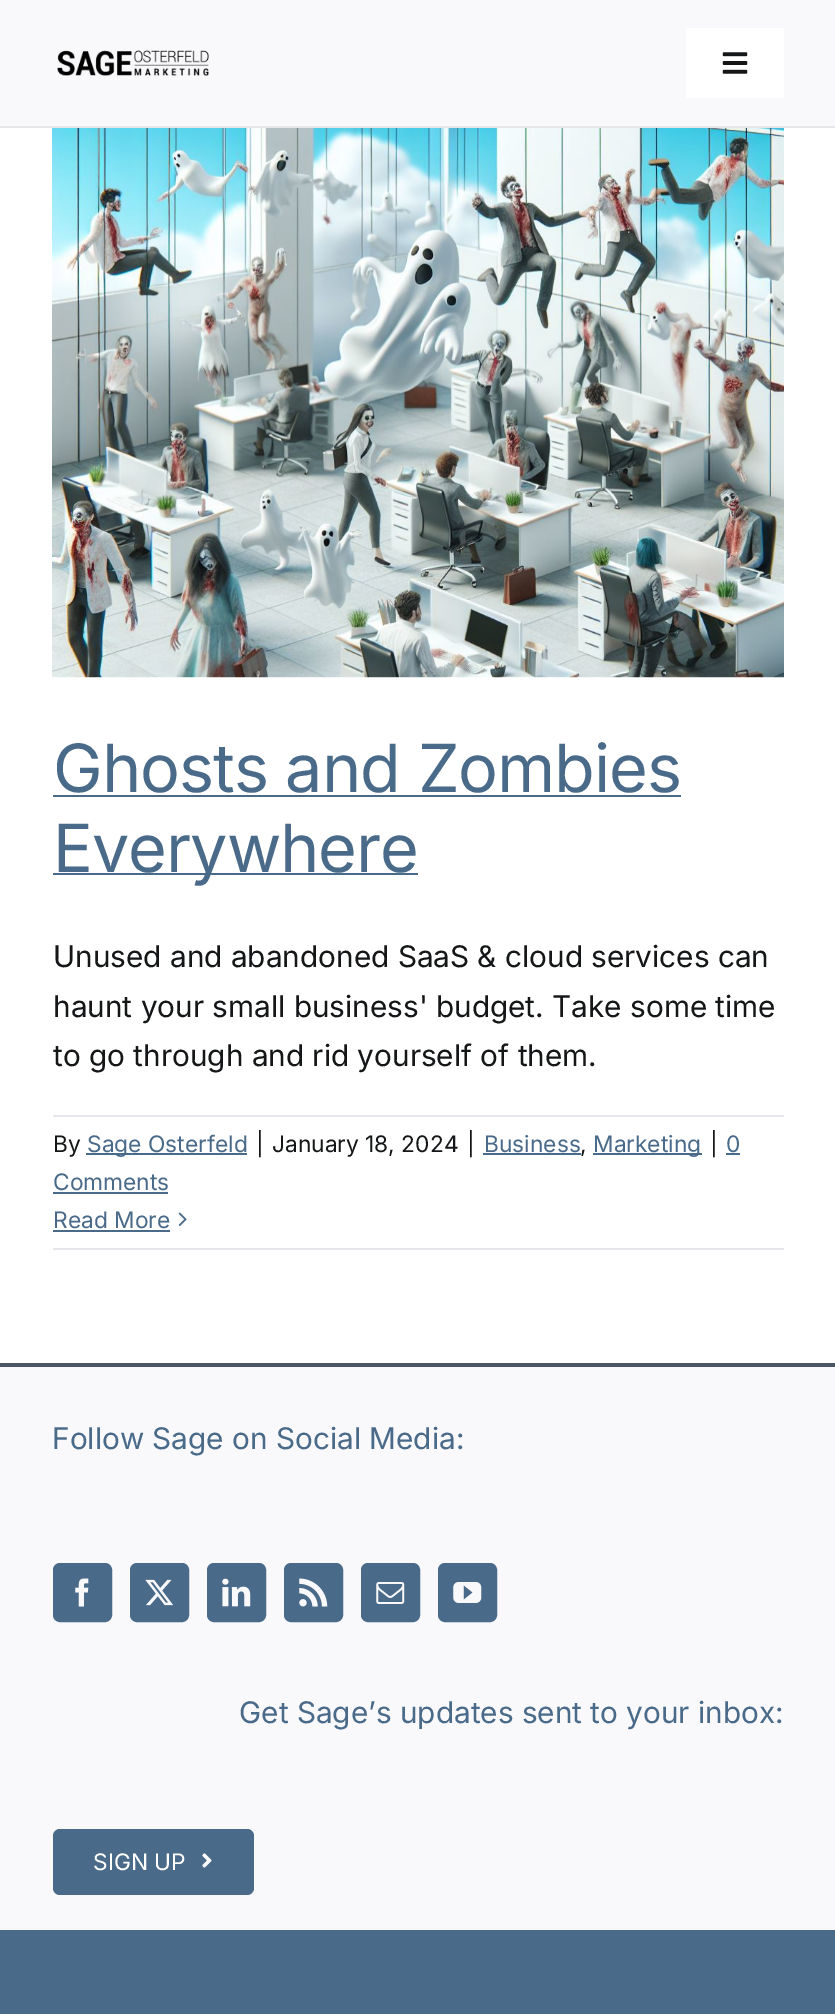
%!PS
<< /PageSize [835 2014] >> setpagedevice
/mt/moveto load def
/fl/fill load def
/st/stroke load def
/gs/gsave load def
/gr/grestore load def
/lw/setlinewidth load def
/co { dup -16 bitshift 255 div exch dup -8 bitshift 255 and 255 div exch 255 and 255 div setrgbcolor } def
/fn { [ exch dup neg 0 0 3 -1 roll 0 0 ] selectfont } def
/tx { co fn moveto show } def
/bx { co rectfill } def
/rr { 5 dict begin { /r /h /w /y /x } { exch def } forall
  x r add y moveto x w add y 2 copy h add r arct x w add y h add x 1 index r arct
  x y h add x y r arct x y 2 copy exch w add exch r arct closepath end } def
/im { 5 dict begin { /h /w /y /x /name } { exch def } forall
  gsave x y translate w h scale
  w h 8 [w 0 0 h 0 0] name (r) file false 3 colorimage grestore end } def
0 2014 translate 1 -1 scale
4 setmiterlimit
0 0 835 2014 16#FFFFFF bx
0 0 835 126 16#F9F9FB bx
0 126 835 2 16#E5E7EB bx
(media/1.raw) 57 50 152 26 im
686 28 98 70 16#FFFFFF bx
(media/2.raw) 722 52 26 22 im
(media/3.raw) 52 128 732 550 im
53 795 628 2 16#4A6A8A bx
53 873 365 2 16#4A6A8A bx
53 1115 731 2 16#E5E7EB bx
53 1248 731 2 16#E5E7EB bx
86 1153 161 2 16#4A6A8A bx
483 1153 98 2 16#4A6A8A bx
593 1153 109 2 16#4A6A8A bx
726 1153 14 2 16#4A6A8A bx
53 1192 115 2 16#4A6A8A bx
53 1230 117 2 16#4A6A8A bx
(media/4.raw) 178 1212 9 15 im
0 1367 835 563 16#F9F9FB bx
0 1363 835 4 16#4B5563 bx
16#4A6A8A co
54 1564 57 57 6 rr gs fl gr
2 lw
st
(media/5.raw) 75 1578 14 29 im
131 1564 57 57 6 rr gs fl gr
st
(media/6.raw) 145 1579 29 27 im
208 1564 57 57 6 rr gs fl gr
st
(media/7.raw) 222 1578 29 29 im
285 1564 57 57 6 rr gs fl gr
st
(media/8.raw) 299 1578 29 29 im
362 1564 57 57 6 rr gs fl gr
st
(media/9.raw) 376 1582 29 22 im
439 1564 57 57 6 rr gs fl gr
st
(media/10.raw) 453 1582 29 21 im
53 1829 201 66 7 rr fl
(media/11.raw) 202 1853 10 15 im
0 1930 835 84 16#4A6A8A bx
/Inter-Regular 66.5 fn
53 792 mt -1 0 (Ghosts and Zombies) ashow
53 872 mt -1 0 (Everywhere) ashow
(Unused and abandoned SaaS & cloud services can) 53 967 /Inter-Regular 29.75 16#141617 tx
(haunt your small business' budget. Take some time) 53 1017 /Inter-Regular 29.75 16#141617 tx
(to go through and rid yourself of them.) 53 1066 /Inter-Regular 29.75 16#141617 tx
(By) 53 1152 /Inter-Regular 22.75 16#141617 tx
(Sage Osterfeld) 87 1152 /Inter-Regular 22.75 16#4A6A8A tx
(|) 256 1152 /Inter-Regular 22.75 16#141617 tx
(January 18, 2024) 272 1152 /Inter-Regular 22.75 16#141617 tx
(|) 467 1152 /Inter-Regular 22.75 16#141617 tx
(Business) 484 1152 /Inter-Regular 22.75 16#4A6A8A tx
(,) 580 1152 /Inter-Regular 22.75 16#141617 tx
(Marketing) 593 1152 /Inter-Regular 22.75 16#4A6A8A tx
(|) 710 1152 /Inter-Regular 22.75 16#141617 tx
(0) 726 1152 /Inter-Regular 22.75 16#4A6A8A tx
(Comments) 53 1190 /Inter-Regular 22.75 16#4A6A8A tx
(Read More) 53 1228 /Inter-Regular 22.75 16#4A6A8A tx
(Follow Sage on Social Media:) 52 1449 /Inter-Regular 29.75 16#4A6A8A tx
(Get Sage’s updates sent to your inbox:) 239 1723 /Inter-Regular 29.75 16#4A6A8A tx
(SIGN UP) 93 1870 /Inter-Regular 22.75 16#FFFFFF tx
showpage
